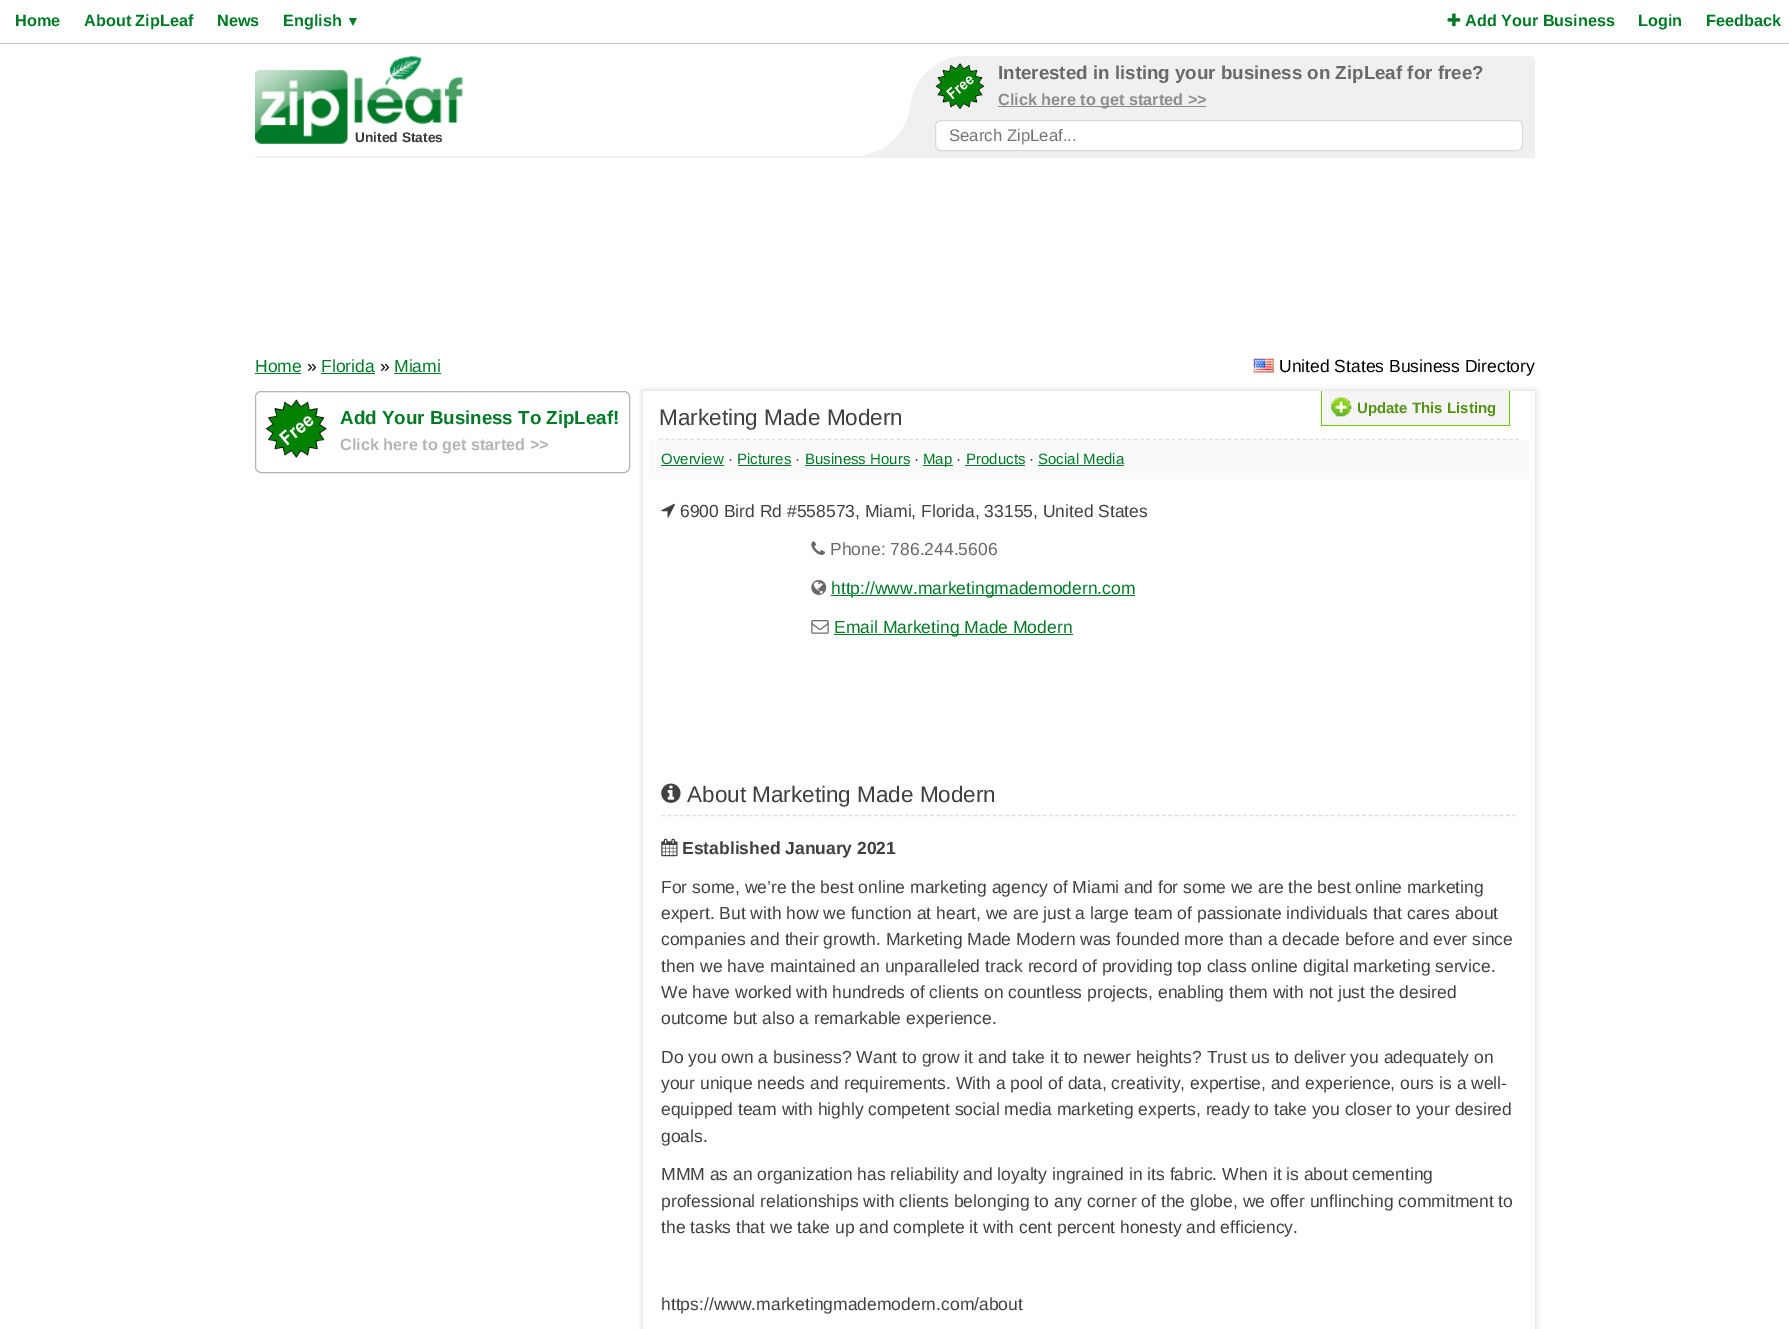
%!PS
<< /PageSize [1789 1329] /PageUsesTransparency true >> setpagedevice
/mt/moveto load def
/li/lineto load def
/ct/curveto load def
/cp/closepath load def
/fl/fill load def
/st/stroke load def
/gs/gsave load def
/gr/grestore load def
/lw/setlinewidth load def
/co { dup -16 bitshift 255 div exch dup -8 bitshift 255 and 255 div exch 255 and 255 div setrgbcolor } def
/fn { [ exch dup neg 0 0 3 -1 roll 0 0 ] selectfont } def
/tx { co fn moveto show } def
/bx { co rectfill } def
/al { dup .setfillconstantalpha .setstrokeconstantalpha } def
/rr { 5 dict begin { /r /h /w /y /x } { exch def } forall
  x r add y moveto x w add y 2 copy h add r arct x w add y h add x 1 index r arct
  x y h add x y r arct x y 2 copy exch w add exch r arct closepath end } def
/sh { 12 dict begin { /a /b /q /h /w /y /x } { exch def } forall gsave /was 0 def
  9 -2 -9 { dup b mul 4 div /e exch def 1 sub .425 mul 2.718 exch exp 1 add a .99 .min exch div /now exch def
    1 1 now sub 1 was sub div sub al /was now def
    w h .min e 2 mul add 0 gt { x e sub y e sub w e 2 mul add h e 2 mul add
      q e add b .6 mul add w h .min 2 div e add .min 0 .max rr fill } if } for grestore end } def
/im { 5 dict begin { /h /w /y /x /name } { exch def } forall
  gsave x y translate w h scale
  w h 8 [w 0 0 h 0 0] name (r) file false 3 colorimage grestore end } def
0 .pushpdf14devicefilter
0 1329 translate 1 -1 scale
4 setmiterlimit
0 0 1789 1329 16#FFFFFF bx
0 43 1789 1 16#C5C5C5 bx
(media/1.raw) 1447 13 14 14 im
255 100 1280 58 16#F0F0F0 bx
16#FFFFFF co
255 56 mt 910 56 li 910 100 li 910 131 885 156 854 156 ct 255 156 li cp fl
(media/2.raw) 255 56 208 88 im
910 100 625 12 16#FFFFFF bx
16#F0F0F0 co
966 56 mt 1529 56 li 1532.5 56 1535 58.5 1535 62 ct 1535 156 li 910 156 li 910 112 li 910 81 935 56 966 56 ct cp fl
(media/3.raw) 935 63 50 47 im
998 106 208 1 16#8C8C8C bx
16#FFFFFF co
935.5 120.5 587 30 5.5 rr gs fl gr
16#D9D9D9 co
st
255 373 46 1 16#007927 bx
321 373 54 1 16#007927 bx
394 373 47 1 16#007927 bx
(media/4.raw) 1253 358 21 15 im
16#B5B3B3 co
255.5 391.5 374 81 5.5 rr st
(media/5.raw) 265 399 62 59 im
16#CCCCCC co
643 391 892 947 0 3 1 sh
643 391 892 938 16#FFFFFF bx
16#E0E0E0 co
1.2 lw
[3.75 2.5] 0 setdash
659 439.5 mt 1519 439.5 li st
1323 391 186 34 16#F5F5F5 bx
1509 391 1 35 16#66CB05 bx
1321 425 189 1 16#66CB05 bx
1321 391 1 35 16#66CB05 bx
(media/6.raw) 1331 397 21 20 im
649 440 880 39 16#FAFAFA bx
661 465 63 1 16#007927 bx
738 465 53 1 16#007927 bx
805 465 105 1 16#007927 bx
923 465 30 1 16#007927 bx
965 465 60 1 16#007927 bx
1038 465 86 1 16#007927 bx
(media/7.raw) 661 503 14 15 im
(media/8.raw) 811 541 14 14 im
(media/9.raw) 811 580 16 15 im
831 595 304 1 16#007927 bx
(media/10.raw) 811 620 18 14 im
834 634 239 1 16#007927 bx
16#E0E0E0 co
[3.75 2.51] 0 setdash
661 815.5 mt 1516 815.5 li st
(media/11.raw) 661 783 20 20 im
(media/12.raw) 661 838 17 19 im
(Home) 15 26 /LiberationSans-Bold 16.25 16#007927 tx
(About ZipLeaf) 84 26 /LiberationSans-Bold 16.25 16#007927 tx
(News) 217 26 /LiberationSans-Bold 16.25 16#007927 tx
(English) 283 26 /LiberationSans-Bold 16.25 16#007927 tx
(▼) 346 26 /LiberationSans-Bold 14 16#007927 tx
(Add Your Business) 1465 26 /LiberationSans-Bold 16.25 16#007927 tx
(Login) 1638 26 /LiberationSans-Bold 16.25 16#007927 tx
(Feedback) 1706 26 /LiberationSans-Bold 16.25 16#007927 tx
(United States) 355 142 /LiberationSans-Bold 13.75 16#3B3A3A tx
(Interested in listing your business on ZipLeaf for free?) 998 79 /LiberationSans-Bold 18.75 16#696969 tx
(Click here to get started >>) 998 105 /LiberationSans-Bold 16.25 16#8C8C8C tx
(Search ZipLeaf...) 949 141 /LiberationSans-Regular 16.75 16#757575 tx
(Home) 255 372 /LiberationSans-Regular 17.5 16#007927 tx
(») 307 372 /LiberationSans-Regular 17.5 16#000000 tx
(Florida) 321 372 /LiberationSans-Regular 17.5 16#007927 tx
(») 380 372 /LiberationSans-Regular 17.5 16#000000 tx
(Miami) 394 372 /LiberationSans-Regular 17.5 16#007927 tx
(United States Business Directory) 1279 372 /LiberationSans-Regular 17.5 16#000000 tx
(Add Your Business To ZipLeaf!) 340 424 /LiberationSans-Bold 18.75 16#007927 tx
(Click here to get started >>) 340 450 /LiberationSans-Bold 16.25 16#B5B3B3 tx
(Marketing Made Modern) 659 425 /LiberationSans-Regular 22.5 16#404040 tx
(Update This Listing) 1357 413 /LiberationSans-Bold 15 16#529214 tx
(Overview) 661 464 /LiberationSans-Regular 15 16#007927 tx
(·) 728 464 /LiberationSans-Regular 15 16#404040 tx
(Pictures) 737 464 /LiberationSans-Regular 15 16#007927 tx
(·) 795 464 /LiberationSans-Regular 15 16#404040 tx
(Business Hours) 805 464 /LiberationSans-Regular 15 16#007927 tx
(·) 914 464 /LiberationSans-Regular 15 16#404040 tx
(Map) 923 464 /LiberationSans-Regular 15 16#007927 tx
(·) 956 464 /LiberationSans-Regular 15 16#404040 tx
(Products) 966 464 /LiberationSans-Regular 15 16#007927 tx
(·) 1029 464 /LiberationSans-Regular 15 16#404040 tx
(Social Media) 1038 464 /LiberationSans-Regular 15 16#007927 tx
(6900 Bird Rd #558573, Miami, Florida, 33155, United States) 680 517 /LiberationSans-Regular 17.5 16#404040 tx
(Phone: 786.244.5606) 830 555 /LiberationSans-Regular 17.5 16#696969 tx
(http://www.marketingmademodern.com) 831 594 /LiberationSans-Regular 17.5 16#007927 tx
(Email Marketing Made Modern) 834 633 /LiberationSans-Regular 17.5 16#007927 tx
(About Marketing Made Modern) 687 802 /LiberationSans-Regular 22.5 16#404040 tx
(Established January 2021) 682 854 /LiberationSans-Bold 17.5 16#404040 tx
(For some, we’re the best online marketing agency of Miami and for some we are the best online marketing) 661 893 /LiberationSans-Regular 17.5 16#404040 tx
(expert. But with how we function at heart, we are just a large team of passionate individuals that cares about) 661 919 /LiberationSans-Regular 17.5 16#404040 tx
(companies and their growth. Marketing Made Modern was founded more than a decade before and ever since) 661 945 /LiberationSans-Regular 17.5 16#404040 tx
(then we have maintained an unparalleled track record of providing top class online digital marketing service.) 661 972 /LiberationSans-Regular 17.5 16#404040 tx
(We have worked with hundreds of clients on countless projects, enabling them with not just the desired) 661 998 /LiberationSans-Regular 17.5 16#404040 tx
(outcome but also a remarkable experience.) 661 1024 /LiberationSans-Regular 17.5 16#404040 tx
(Do you own a business? Want to grow it and take it to newer heights? Trust us to deliver you adequately on) 661 1063 /LiberationSans-Regular 17.5 16#404040 tx
(your unique needs and requirements. With a pool of data, creativity, expertise, and experience, ours is a well-) 661 1089 /LiberationSans-Regular 17.5 16#404040 tx
(equipped team with highly competent social media marketing experts, ready to take you closer to your desired) 661 1115 /LiberationSans-Regular 17.5 16#404040 tx
(goals.) 661 1142 /LiberationSans-Regular 17.5 16#404040 tx
(MMM as an organization has reliability and loyalty ingrained in its fabric. When it is about cementing) 661 1180 /LiberationSans-Regular 17.5 16#404040 tx
(professional relationships with clients belonging to any corner of the globe, we offer unflinching commitment to) 661 1207 /LiberationSans-Regular 17.5 16#404040 tx
(the tasks that we take up and complete it with cent percent honesty and efficiency.) 661 1233 /LiberationSans-Regular 17.5 16#404040 tx
(https://www.marketingmademodern.com/about) 661 1310 /LiberationSans-Regular 17.5 16#404040 tx
.poppdf14devicefilter showpage
